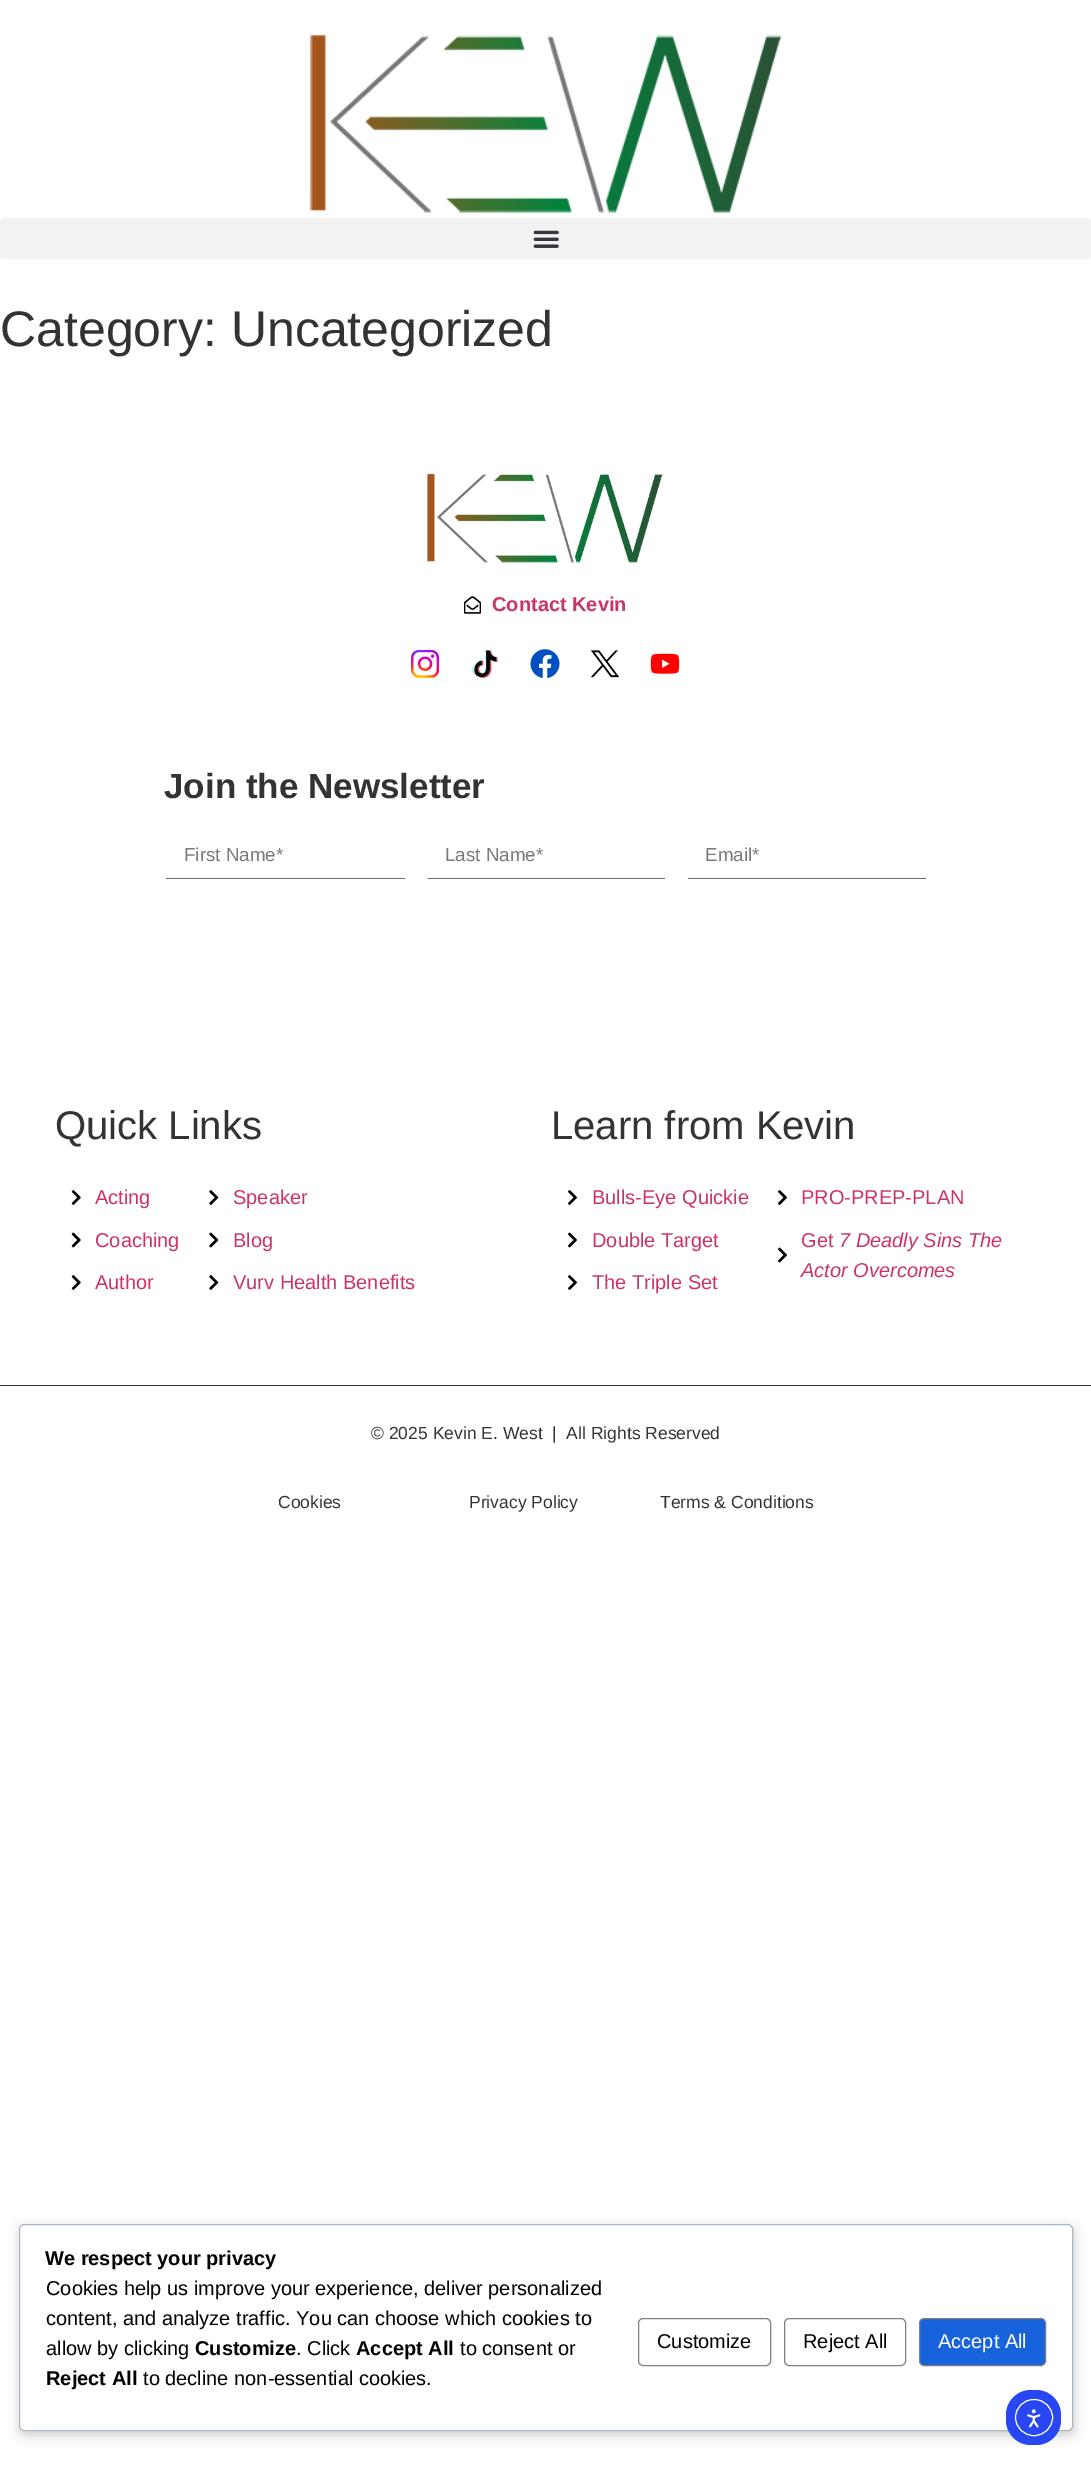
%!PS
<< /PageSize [1091 2475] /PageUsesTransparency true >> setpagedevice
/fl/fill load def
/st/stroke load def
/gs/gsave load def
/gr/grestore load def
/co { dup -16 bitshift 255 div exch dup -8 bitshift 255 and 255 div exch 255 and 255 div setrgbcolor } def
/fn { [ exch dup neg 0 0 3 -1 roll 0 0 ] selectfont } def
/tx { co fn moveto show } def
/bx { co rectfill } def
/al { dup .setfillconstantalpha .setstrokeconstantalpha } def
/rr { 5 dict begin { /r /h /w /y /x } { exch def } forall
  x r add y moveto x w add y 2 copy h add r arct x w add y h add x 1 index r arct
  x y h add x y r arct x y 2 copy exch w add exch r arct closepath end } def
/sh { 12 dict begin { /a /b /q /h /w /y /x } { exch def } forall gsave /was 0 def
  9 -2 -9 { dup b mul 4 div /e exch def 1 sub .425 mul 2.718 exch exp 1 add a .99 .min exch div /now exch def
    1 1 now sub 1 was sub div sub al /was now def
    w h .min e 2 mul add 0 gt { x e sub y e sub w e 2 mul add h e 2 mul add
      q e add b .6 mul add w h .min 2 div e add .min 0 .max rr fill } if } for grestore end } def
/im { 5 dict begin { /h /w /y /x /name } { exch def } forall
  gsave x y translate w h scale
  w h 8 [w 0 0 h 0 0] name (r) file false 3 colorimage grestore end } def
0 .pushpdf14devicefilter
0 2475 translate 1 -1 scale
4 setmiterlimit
0 0 1091 2475 16#FFFFFF bx
(media/1.raw) 309 34 473 179 im
16#F2F2F2 co
0 218 1091 41 4 rr fl
(media/2.raw) 533 230 26 18 im
(media/3.raw) 427 473 236 90 im
(media/4.raw) 464 596 17 18 im
(media/5.raw) 411 649 29 29 im
(media/6.raw) 472 649 26 29 im
(media/7.raw) 530 649 30 29 im
(media/8.raw) 590 650 30 28 im
(media/9.raw) 650 653 30 21 im
166 878 239 1 16#69727D bx
428 878 237 1 16#69727D bx
688 878 238 1 16#69727D bx
(media/10.raw) 71 1190 10 15 im
(media/11.raw) 71 1232 10 16 im
(media/10.raw) 71 1275 10 15 im
(media/12.raw) 209 1190 10 15 im
(media/13.raw) 209 1232 10 16 im
(media/12.raw) 209 1275 10 15 im
(media/14.raw) 568 1190 9 15 im
(media/15.raw) 568 1232 9 16 im
(media/14.raw) 568 1275 9 15 im
(media/14.raw) 778 1190 9 15 im
(media/15.raw) 778 1247 9 16 im
0 1385 1091 1 16#333333 bx
16#000000 co
20 2228 1054 207 5 6 .2 sh
16#FFFFFF co
19.5 2224.5 1053 206 4.5 rr gs fl gr
16#ABB8C3 co
st
16#808080 co
638.5 2318.5 132 47 4.5 rr st
784.5 2318.5 121 47 4.5 rr st
16#1863DC co
919.5 2318.5 126 47 4.5 rr gs fl gr
16#808080 co
st
16#2847F3 co
1006 2390 55 55 25 rr fl
16#FFFFFF co
1015.5 2399.5 37 36 18 rr st
(media/16.raw) 1027 2409 14 19 im
(Category: Uncategorized) 0 346 /LiberationSans-Regular 50 16#333333 tx
(Contact Kevin) 492 611 /LiberationSans-Bold 20 16#CC3366 tx
(Join the Newsletter) 164 798 /LiberationSans-Bold 35 16#333333 tx
(First Name*) 184 861 /LiberationSans-Regular 18.75 16#797A7C tx
(Last Name*) 445 861 /LiberationSans-Regular 18.75 16#797A7C tx
(Email*) 705 861 /LiberationSans-Regular 18.75 16#797A7C tx
(Quick Links) 55 1139 /LiberationSans-Regular 40 16#333333 tx
(Acting) 95 1204 /LiberationSans-Regular 20 16#CC3366 tx
(Coaching) 95 1247 /LiberationSans-Regular 20 16#CC3366 tx
(Author) 95 1289 /LiberationSans-Regular 20 16#CC3366 tx
(Speaker) 233 1204 /LiberationSans-Regular 20 16#CC3366 tx
(Blog) 233 1247 /LiberationSans-Regular 20 16#CC3366 tx
(Vurv Health Benefits) 233 1289 /LiberationSans-Regular 20 16#CC3366 tx
(Learn from Kevin) 551 1139 /LiberationSans-Regular 40 16#333333 tx
(Bulls-Eye Quickie) 592 1204 /LiberationSans-Regular 20 16#CC3366 tx
(Double Target) 592 1247 /LiberationSans-Regular 20 16#CC3366 tx
(The Triple Set) 592 1289 /LiberationSans-Regular 20 16#CC3366 tx
(PRO-PREP-PLAN) 801 1204 /LiberationSans-Regular 20 16#CC3366 tx
(Get) 801 1247 /LiberationSans-Regular 20 16#CC3366 tx
(7 Deadly Sins The) 839 1247 /LiberationSans-Italic 20 16#CC3366 tx
(Actor Overcomes) 801 1277 /LiberationSans-Italic 20 16#CC3366 tx
(© 2025 Kevin E. West  |  All Rights Reserved) 371 1439 /LiberationSans-Regular 17.5 16#333333 tx
(Cookies) 278 1508 /LiberationSans-Regular 17.5 16#333333 tx
(Privacy Policy) 469 1508 /LiberationSans-Regular 17.5 16#333333 tx
(Terms & Conditions) 660 1508 /LiberationSans-Regular 17.5 16#333333 tx
(We respect your privacy) 45 2265 /LiberationSans-Bold 20 16#000000 tx
(Cookies help us improve your experience, deliver personalized) 46 2295 /LiberationSans-Regular 20 16#000000 tx
(content, and analyze traffic. You can choose which cookies to) 46 2325 /LiberationSans-Regular 20 16#000000 tx
(allow by clicking) 46 2355 /LiberationSans-Regular 20 16#000000 tx
(Customize) 195 2355 /LiberationSans-Bold 20 16#000000 tx
(. Click) 296 2355 /LiberationSans-Regular 20 16#000000 tx
(Accept All) 356 2355 /LiberationSans-Bold 20 16#000000 tx
(to consent or) 460 2355 /LiberationSans-Regular 20 16#000000 tx
(Reject All) 46 2385 /LiberationSans-Bold 20 16#000000 tx
(to decline non-essential cookies.) 143 2385 /LiberationSans-Regular 20 16#000000 tx
(Customize) 657 2348 /LiberationSans-Regular 20 16#000000 tx
(Reject All) 803 2348 /LiberationSans-Regular 20 16#000000 tx
(Accept All) 938 2348 /LiberationSans-Regular 20 16#FFFFFF tx
.poppdf14devicefilter showpage
